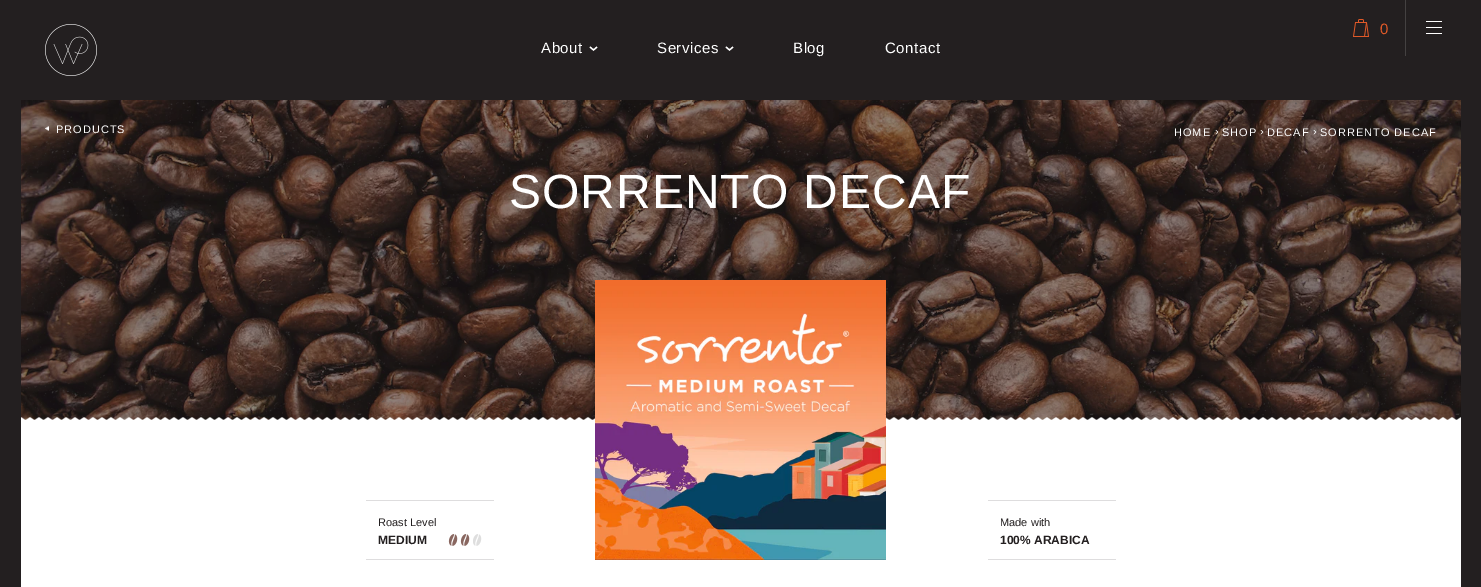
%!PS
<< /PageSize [1481 587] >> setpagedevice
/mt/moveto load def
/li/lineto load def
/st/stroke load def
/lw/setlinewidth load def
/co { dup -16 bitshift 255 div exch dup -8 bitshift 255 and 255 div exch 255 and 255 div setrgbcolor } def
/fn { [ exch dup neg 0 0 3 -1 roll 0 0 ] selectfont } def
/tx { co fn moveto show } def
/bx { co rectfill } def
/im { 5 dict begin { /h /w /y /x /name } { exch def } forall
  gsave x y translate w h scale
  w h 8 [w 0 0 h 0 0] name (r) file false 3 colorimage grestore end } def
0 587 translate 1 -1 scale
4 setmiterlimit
0 0 1481 587 16#231F20 bx
(media/1.raw) 45 24 52 52 im
16#FFFFFF co
1.3 lw
590 47 mt 593.5 50 li 597 47 li st
726 47 mt 729.5 50 li 733 47 li st
(media/2.raw) 1353 19 16 18 im
1405 0 1 56 16#444141 bx
1426 21 16 1 16#FFFFFF bx
1426 27 16 1 16#FFFFFF bx
1426 33 16 1 16#FFFFFF bx
21 420 1440 167 16#FFFFFF bx
(media/3.raw) 21 100 1440 320 im
(media/4.raw) 21 100 1440 320 im
(media/5.raw) 45 126 4 5 im
(media/6.raw) 21 417 1440 3 im
366 500 128 1 16#DEDDDE bx
366 559 128 1 16#DEDDDE bx
(media/7.raw) 448 534 10 12 im
(media/7.raw) 460 534 10 12 im
(media/8.raw) 473 534 9 12 im
(media/9.raw) 595 280 291 280 im
988 500 128 1 16#DEDDDE bx
988 559 128 1 16#DEDDDE bx
/LiberationSans-Regular 15 fn
16#FFFFFF co
541 53 mt .5 0 (About) ashow
657 53 mt .5 0 (Services) ashow
793 53 mt .5 0 (Blog) ashow
885 53 mt .5 0 (Contact) ashow
16#E05928 co
1380 34 mt .5 0 (0) ashow
/LiberationSans-Regular 11 fn
16#FFFFFF co
56 133 mt 1 0 (PRODUCTS) ashow
1174 136 mt 1 0 (HOME) ashow
(›) 1215 135 /LiberationSans-Regular 11 16#FFFFFF tx
1222 136 mt 1 0 (SHOP) ashow
(›) 1260 135 /LiberationSans-Regular 11 16#FFFFFF tx
1267 136 mt 1 0 (DECAF) ashow
(›) 1313 135 /LiberationSans-Regular 11 16#FFFFFF tx
1320 136 mt 1 0 (SORRENTO DECAF) ashow
/LiberationSans-Regular 48 fn
509 208 mt 1 0 (SORRENTO DECAF) ashow
(Roast Level) 378 526 /LiberationSans-Regular 11 16#231F20 tx
(MEDIUM) 378 544 /LiberationSans-Bold 12 16#231F20 tx
(Made with) 1000 526 /LiberationSans-Regular 11 16#231F20 tx
(100% ARABICA) 1000 544 /LiberationSans-Bold 12 16#231F20 tx
showpage
